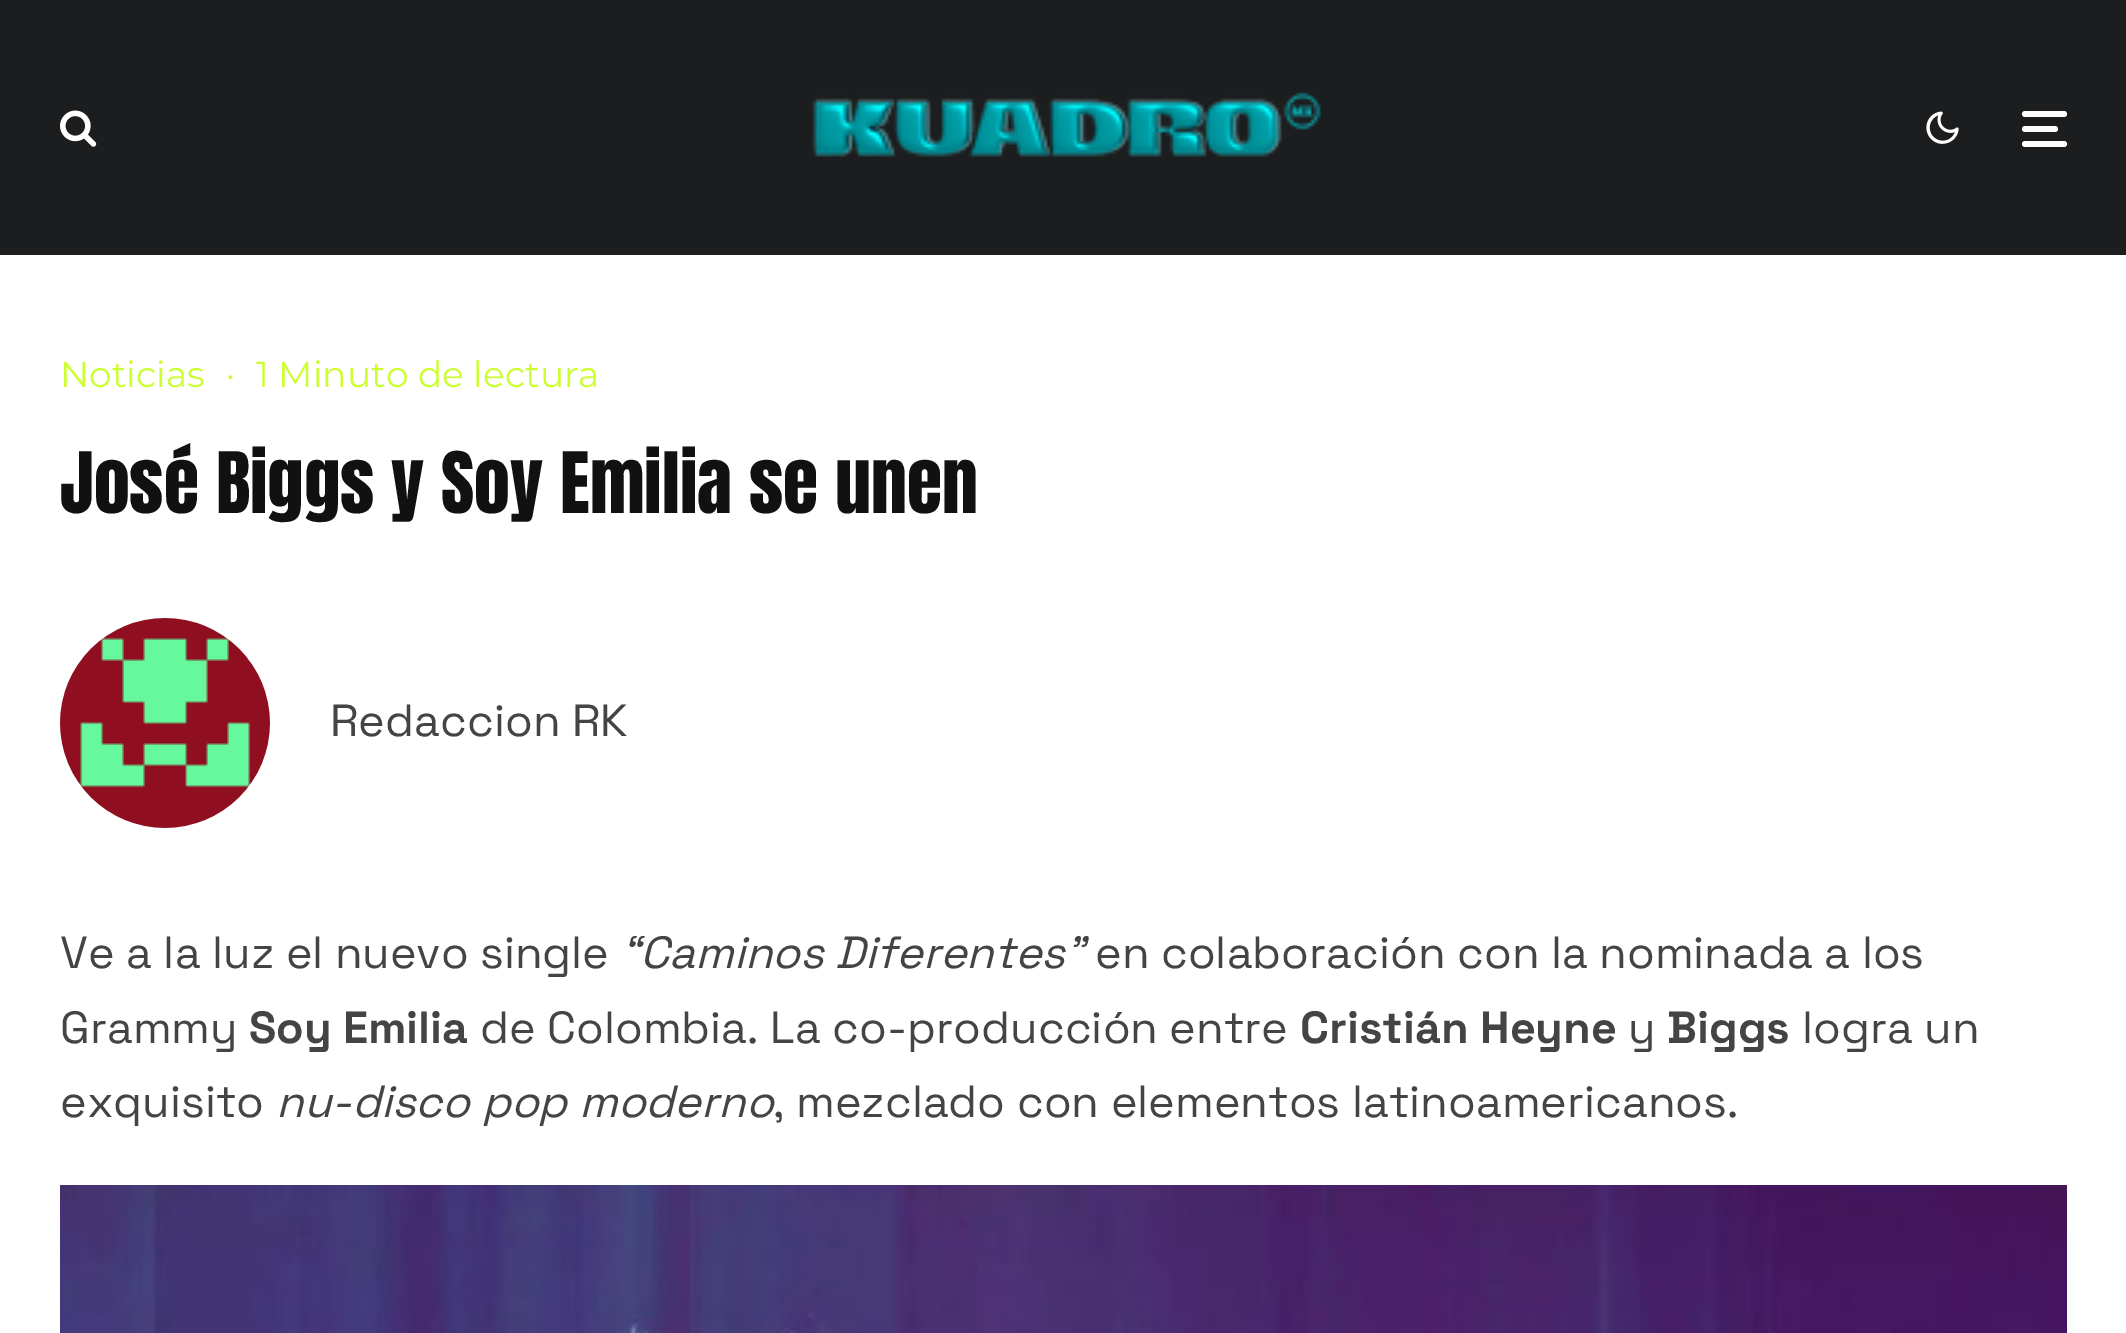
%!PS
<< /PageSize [2126 1333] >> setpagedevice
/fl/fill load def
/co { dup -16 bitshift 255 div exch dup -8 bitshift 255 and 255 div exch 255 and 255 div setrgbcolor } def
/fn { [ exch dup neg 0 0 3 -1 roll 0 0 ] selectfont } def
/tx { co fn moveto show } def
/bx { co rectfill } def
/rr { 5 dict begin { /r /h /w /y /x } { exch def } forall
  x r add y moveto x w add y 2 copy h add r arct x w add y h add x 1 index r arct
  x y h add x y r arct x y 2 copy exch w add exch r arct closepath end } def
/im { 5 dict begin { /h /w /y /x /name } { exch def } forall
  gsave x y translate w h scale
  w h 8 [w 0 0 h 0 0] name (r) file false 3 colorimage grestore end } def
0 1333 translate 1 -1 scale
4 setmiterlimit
0 0 2126 1333 16#FFFFFF bx
0 0 2126 255 16#1C1D1E bx
(media/1.raw) 60 110 37 37 im
(media/2.raw) 812 92 509 65 im
(media/3.raw) 1926 111 33 33 im
16#FFFFFF co
2022 126 36 6 3 rr fl
2022 111 45 6 3 rr fl
2022 141 45 6 3 rr fl
(media/4.raw) 60 618 210 210 im
(media/5.raw) 60 1185 2007 148 im
(Noticias) 60 387 /Montserrat-Regular 36 16#CCFF33 tx
(·) 226 387 /Montserrat-Regular 36 16#CCFF33 tx
(1 Minuto de lectura) 256 387 /Montserrat-Regular 36 16#CCFF33 tx
(José Biggs y Soy Emilia se unen) 60 513 /Anton-Regular 72 16#111111 tx
(Redaccion RK) 330 736 /SpaceGrotesk-Regular 45 16#444444 tx
(Ve a la luz el nuevo single) 60 968 /SpaceGrotesk-Regular 45 16#444444 tx
(“Caminos Diferentes”) 621 968 /SpaceGrotesk-Italic 45 16#444444 tx
(en colaboración con la nominada a los) 1095 968 /SpaceGrotesk-Regular 45 16#444444 tx
(Grammy) 60 1043 /SpaceGrotesk-Regular 45 16#444444 tx
(Soy Emilia) 249 1043 /SpaceGrotesk-Bold 45 16#444444 tx
(de Colombia. La co-producción entre) 480 1043 /SpaceGrotesk-Regular 45 16#444444 tx
(Cristián Heyne) 1300 1043 /SpaceGrotesk-Bold 45 16#444444 tx
(y) 1628 1043 /SpaceGrotesk-Regular 45 16#444444 tx
(Biggs) 1667 1043 /SpaceGrotesk-Bold 45 16#444444 tx
(logra un) 1802 1043 /SpaceGrotesk-Regular 45 16#444444 tx
(exquisito) 60 1117 /SpaceGrotesk-Regular 45 16#444444 tx
(nu-disco pop moderno) 276 1117 /SpaceGrotesk-Italic 45 16#444444 tx
(, mezclado con elementos latinoamericanos.) 773 1117 /SpaceGrotesk-Regular 45 16#444444 tx
showpage
